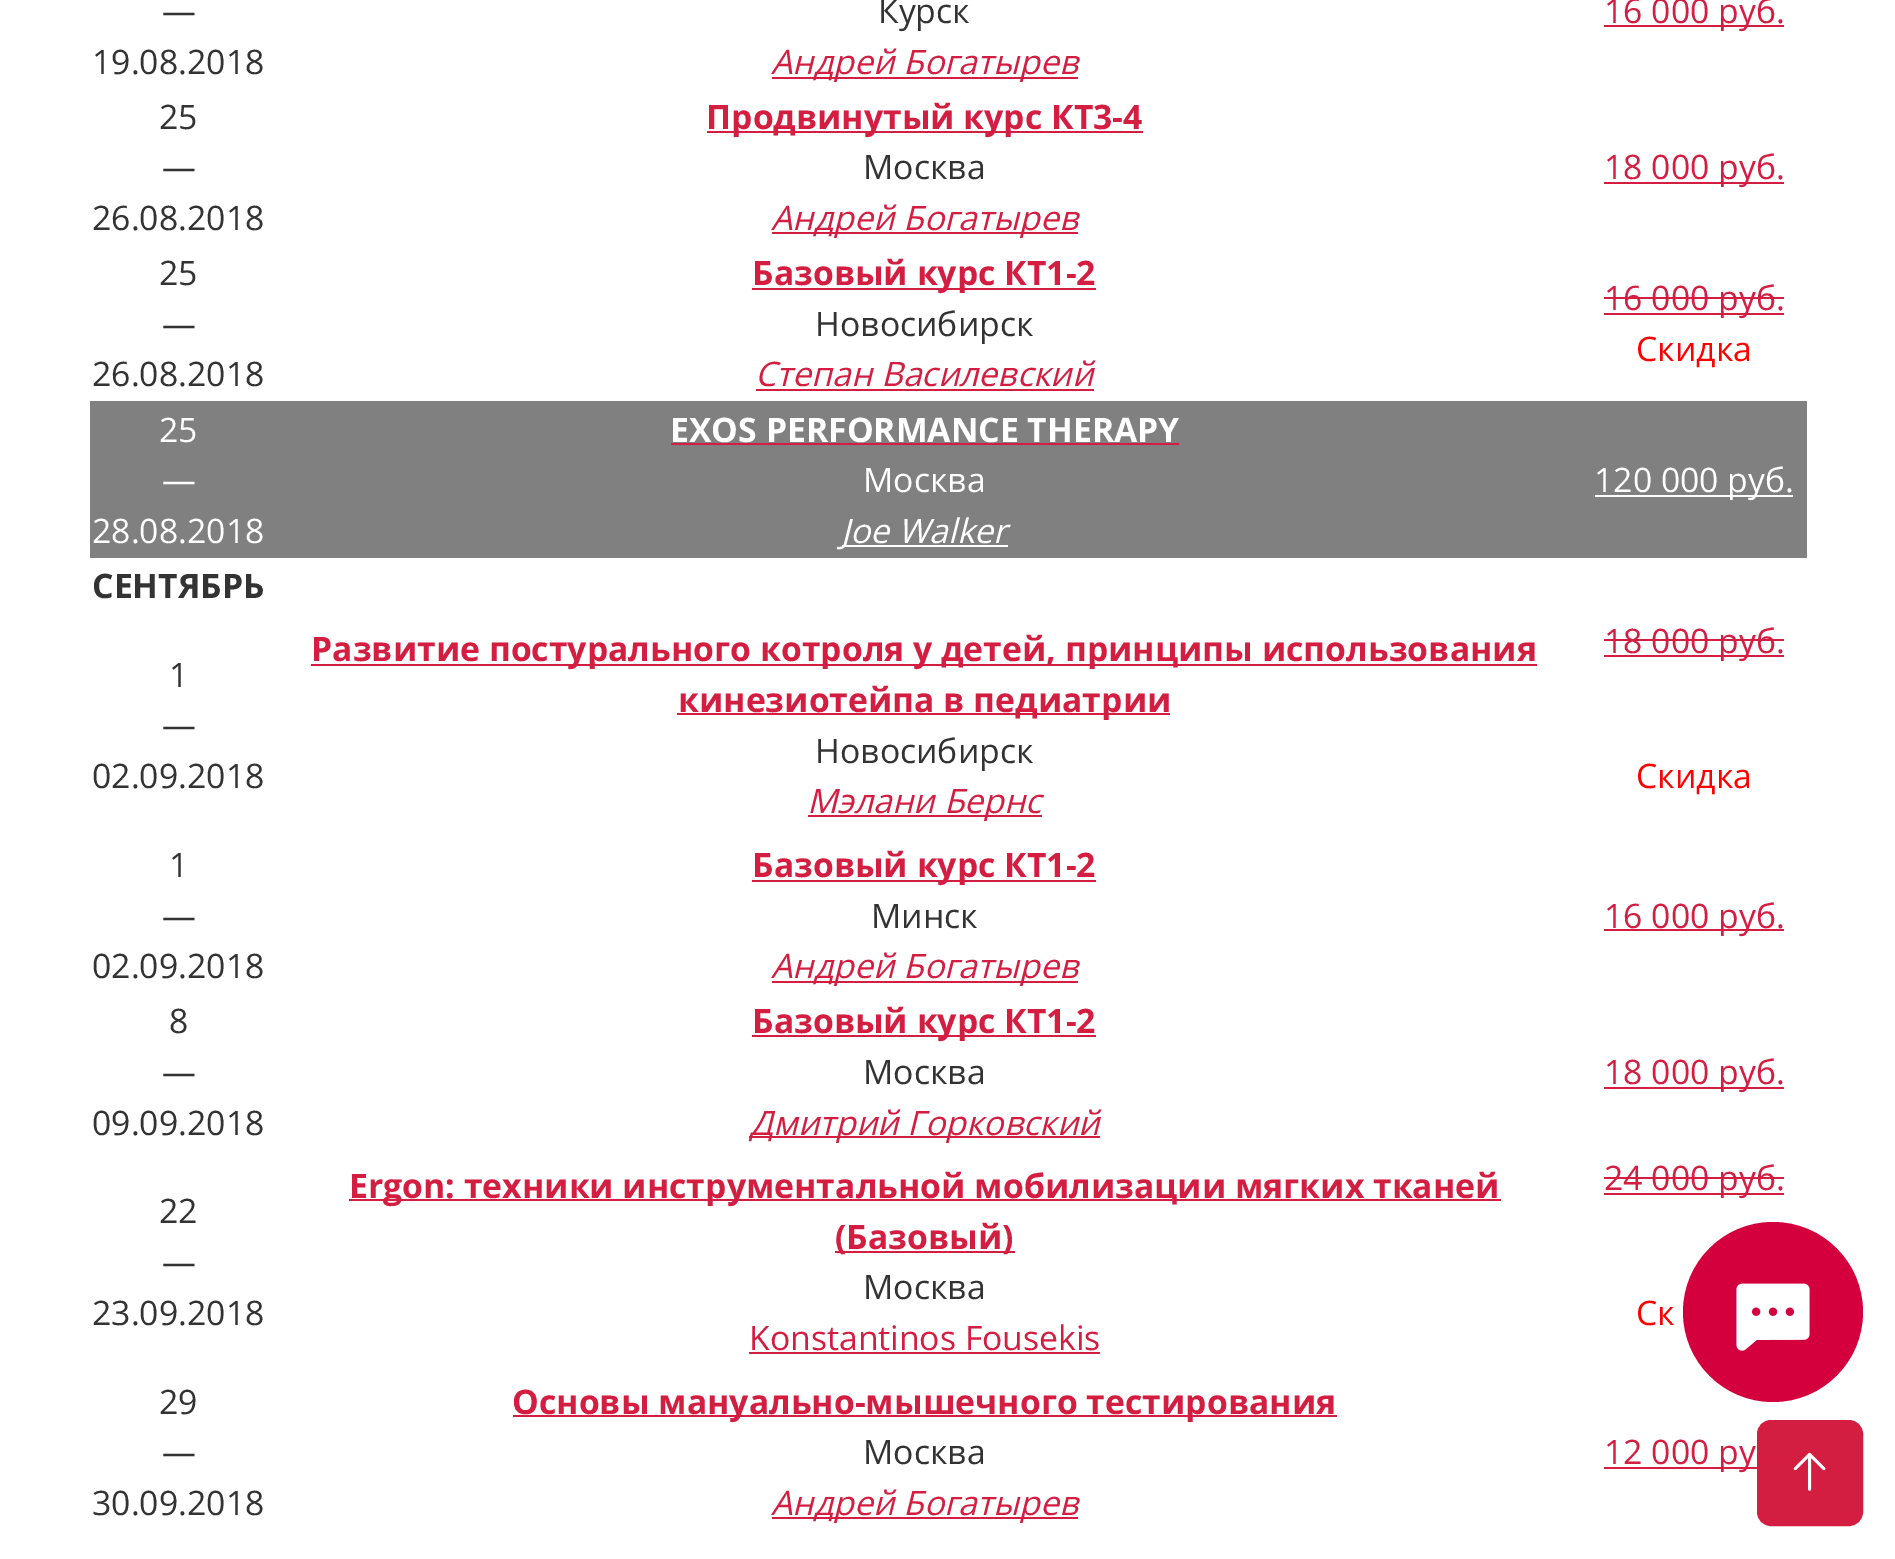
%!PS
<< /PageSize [1895 1559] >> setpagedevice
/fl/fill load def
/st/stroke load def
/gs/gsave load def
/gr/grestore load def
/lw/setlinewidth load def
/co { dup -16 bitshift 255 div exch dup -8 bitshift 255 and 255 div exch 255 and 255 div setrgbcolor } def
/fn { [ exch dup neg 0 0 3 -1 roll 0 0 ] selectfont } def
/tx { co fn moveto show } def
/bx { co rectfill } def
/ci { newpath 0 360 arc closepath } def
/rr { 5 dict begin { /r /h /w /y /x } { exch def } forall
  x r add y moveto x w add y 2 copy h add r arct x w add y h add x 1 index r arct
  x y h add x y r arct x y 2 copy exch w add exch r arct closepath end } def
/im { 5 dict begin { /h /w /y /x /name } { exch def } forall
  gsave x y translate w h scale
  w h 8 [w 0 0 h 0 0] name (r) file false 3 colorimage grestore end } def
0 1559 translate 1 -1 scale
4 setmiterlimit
0 0 1895 1559 16#FFFFFF bx
772 77 306 2 16#D41E41 bx
1604 25 180 2 16#D41E41 bx
707 131 436 2 16#D41E41 bx
772 232 306 2 16#D41E41 bx
1604 182 180 2 16#D41E41 bx
752 288 344 2 16#D41E41 bx
756 389 338 2 16#D41E41 bx
1604 313 180 2 16#D41E41 bx
1604 297 180 2 16#D41E41 bx
90 401 1717 157 16#808080 bx
671 443 508 2 16#D41E41 bx
842 545 166 2 16#FFFFFF bx
1595 495 198 2 16#FFFFFF bx
311 664 1226 2 16#D41E41 bx
677 713 493 2 16#D41E41 bx
808 815 234 2 16#D41E41 bx
1604 655 180 2 16#D41E41 bx
1604 639 180 2 16#D41E41 bx
752 880 344 2 16#D41E41 bx
772 981 306 2 16#D41E41 bx
1604 929 180 2 16#D41E41 bx
752 1035 344 2 16#D41E41 bx
749 1136 351 2 16#D41E41 bx
1604 1087 180 2 16#D41E41 bx
349 1199 1152 2 16#D41E41 bx
835 1251 180 2 16#D41E41 bx
749 1352 351 2 16#D41E41 bx
1604 1193 180 2 16#D41E41 bx
1604 1177 180 2 16#D41E41 bx
513 1415 824 2 16#D41E41 bx
772 1517 306 2 16#D41E41 bx
1604 1467 153 2 16#D41E41 bx
16#D4003E co
1773 1312 90 ci fl
(media/1.raw) 1736 1283 74 68 im
16#D41E41 co
1758 1421 104 104 13 rr gs fl gr
2 lw
st
(media/2.raw) 1793 1452 33 39 im
(—) 162 23 /OpenSans-Regular 33.75 16#333333 tx
(19.08.2018) 92 74 /OpenSans-Regular 33.75 16#333333 tx
(Курск) 878 23 /OpenSans-Regular 33.75 16#333333 tx
(Андрей Богатырев) 771 74 /OpenSans-Italic 33.75 16#D41E41 tx
(16 000 руб.) 1604 23 /OpenSans-Regular 33.75 16#D41E41 tx
(25) 159 129 /OpenSans-Regular 33.75 16#333333 tx
(—) 162 179 /OpenSans-Regular 33.75 16#333333 tx
(26.08.2018) 92 230 /OpenSans-Regular 33.75 16#333333 tx
(Продвинутый курс КT3-4) 706 129 /OpenSans-Bold 33.75 16#D41E41 tx
(Москва) 863 179 /OpenSans-Regular 33.75 16#333333 tx
(Андрей Богатырев) 771 230 /OpenSans-Italic 33.75 16#D41E41 tx
(18 000 руб.) 1604 179 /OpenSans-Regular 33.75 16#D41E41 tx
(25) 159 285 /OpenSans-Regular 33.75 16#333333 tx
(—) 162 336 /OpenSans-Regular 33.75 16#333333 tx
(26.08.2018) 92 386 /OpenSans-Regular 33.75 16#333333 tx
(Базовый курс КТ1-2) 752 285 /OpenSans-Bold 33.75 16#D41E41 tx
(Новосибирск) 815 336 /OpenSans-Regular 33.75 16#333333 tx
(Степан Василевский) 755 386 /OpenSans-Italic 33.75 16#D41E41 tx
(16 000 руб.) 1604 310 /OpenSans-Regular 33.75 16#D41E41 tx
(Скидка) 1636 361 /OpenSans-Regular 33.75 16#FF0000 tx
(25) 159 442 /OpenSans-Regular 33.75 16#FFFFFF tx
(—) 162 492 /OpenSans-Regular 33.75 16#FFFFFF tx
(28.08.2018) 92 543 /OpenSans-Regular 33.75 16#FFFFFF tx
(EXOS PERFORMANCE THERAPY) 670 442 /OpenSans-Bold 33.75 16#FFFFFF tx
(Москва) 863 492 /OpenSans-Regular 33.75 16#FFFFFF tx
(Joe Walker) 841 543 /OpenSans-Italic 33.75 16#FFFFFF tx
(120 000 руб.) 1594 492 /OpenSans-Regular 33.75 16#FFFFFF tx
(СЕНТЯБРЬ) 92 598 /OpenSans-Bold 33.75 16#333333 tx
(1) 169 687 /OpenSans-Regular 33.75 16#333333 tx
(—) 162 737 /OpenSans-Regular 33.75 16#333333 tx
(02.09.2018) 92 788 /OpenSans-Regular 33.75 16#333333 tx
(Развитие постурального котроля у детей, принципы использования) 311 661 /OpenSans-Bold 33.75 16#D41E41 tx
(кинезиотейпа в педиатрии) 678 712 /OpenSans-Bold 33.75 16#D41E41 tx
(Новосибирск) 815 763 /OpenSans-Regular 33.75 16#333333 tx
(Мэлани Бернс) 807 813 /OpenSans-Italic 33.75 16#D41E41 tx
(18 000 руб.) 1604 653 /OpenSans-Regular 33.75 16#D41E41 tx
(Скидка) 1636 788 /OpenSans-Regular 33.75 16#FF0000 tx
(1) 169 877 /OpenSans-Regular 33.75 16#333333 tx
(—) 162 928 /OpenSans-Regular 33.75 16#333333 tx
(02.09.2018) 92 978 /OpenSans-Regular 33.75 16#333333 tx
(Базовый курс КТ1-2) 752 877 /OpenSans-Bold 33.75 16#D41E41 tx
(Минск) 871 928 /OpenSans-Regular 33.75 16#333333 tx
(Андрей Богатырев) 771 978 /OpenSans-Italic 33.75 16#D41E41 tx
(16 000 руб.) 1604 928 /OpenSans-Regular 33.75 16#D41E41 tx
(8) 169 1033 /OpenSans-Regular 33.75 16#333333 tx
(—) 162 1084 /OpenSans-Regular 33.75 16#333333 tx
(09.09.2018) 92 1135 /OpenSans-Regular 33.75 16#333333 tx
(Базовый курс КТ1-2) 752 1033 /OpenSans-Bold 33.75 16#D41E41 tx
(Москва) 863 1084 /OpenSans-Regular 33.75 16#333333 tx
(Дмитрий Горковский) 750 1135 /OpenSans-Italic 33.75 16#D41E41 tx
(18 000 руб.) 1604 1084 /OpenSans-Regular 33.75 16#D41E41 tx
(22) 159 1223 /OpenSans-Regular 33.75 16#333333 tx
(—) 162 1274 /OpenSans-Regular 33.75 16#333333 tx
(23.09.2018) 92 1325 /OpenSans-Regular 33.75 16#333333 tx
(Ergon: техники инструментальной мобилизации мягких тканей) 349 1198 /OpenSans-Bold 33.75 16#D41E41 tx
(\(Базовый\)) 835 1249 /OpenSans-Bold 33.75 16#D41E41 tx
(Москва) 863 1299 /OpenSans-Regular 33.75 16#333333 tx
(Konstantinos Fousekis) 749 1350 /OpenSans-Regular 33.75 16#D41E41 tx
(24 000 руб.) 1604 1190 /OpenSans-Regular 33.75 16#D41E41 tx
(Ск) 1636 1325 /OpenSans-Regular 33.75 16#FF0000 tx
(29) 159 1414 /OpenSans-Regular 33.75 16#333333 tx
(—) 162 1464 /OpenSans-Regular 33.75 16#333333 tx
(30.09.2018) 92 1515 /OpenSans-Regular 33.75 16#333333 tx
(Основы мануально-мышечного тестирования) 512 1414 /OpenSans-Bold 33.75 16#D41E41 tx
(Москва) 863 1464 /OpenSans-Regular 33.75 16#333333 tx
(Андрей Богатырев) 771 1515 /OpenSans-Italic 33.75 16#D41E41 tx
(12 000 ру) 1604 1464 /OpenSans-Regular 33.75 16#D41E41 tx
showpage
